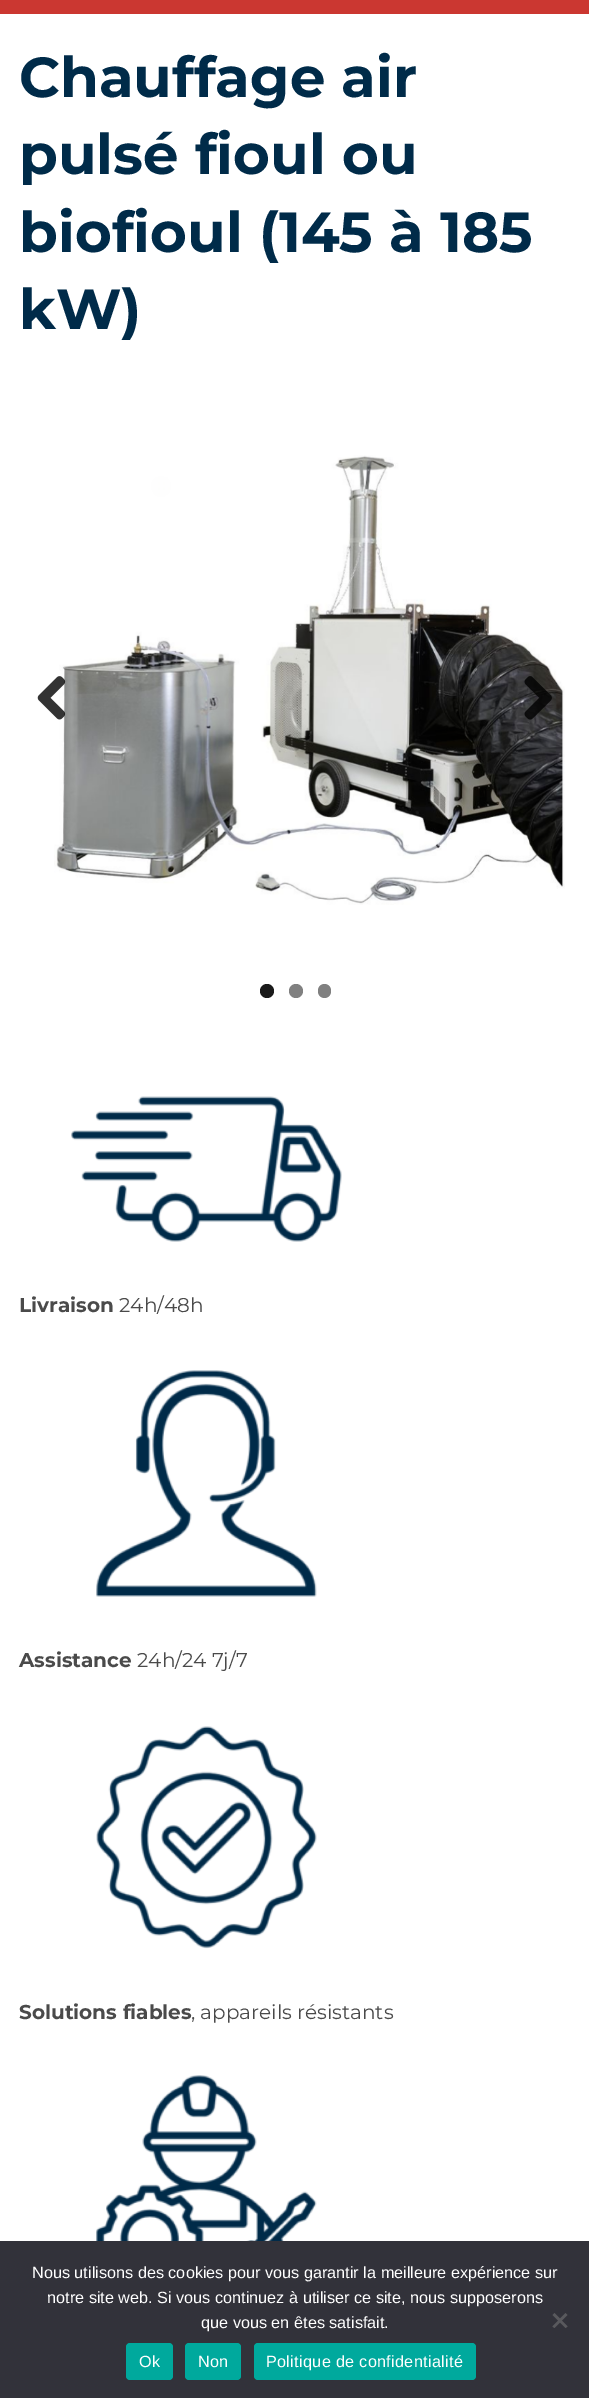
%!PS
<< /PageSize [589 2398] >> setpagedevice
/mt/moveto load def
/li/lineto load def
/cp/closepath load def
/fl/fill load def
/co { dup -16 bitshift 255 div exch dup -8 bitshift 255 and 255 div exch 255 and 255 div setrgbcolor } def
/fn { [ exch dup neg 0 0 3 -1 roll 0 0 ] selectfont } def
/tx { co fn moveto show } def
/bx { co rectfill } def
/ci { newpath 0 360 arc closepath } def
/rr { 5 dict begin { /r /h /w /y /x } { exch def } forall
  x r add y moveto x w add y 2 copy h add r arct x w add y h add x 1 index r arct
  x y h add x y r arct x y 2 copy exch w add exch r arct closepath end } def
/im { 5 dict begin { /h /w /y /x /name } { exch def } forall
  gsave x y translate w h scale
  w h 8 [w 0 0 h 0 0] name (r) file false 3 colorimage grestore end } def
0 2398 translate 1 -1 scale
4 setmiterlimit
0 0 589 2398 16#FFFFFF bx
0 0 589 14 16#CB3731 bx
(media/1.raw) 54 455 511 450 im
(media/2.raw) 37 676 29 44 im
(media/3.raw) 524 676 28 44 im
16#1A1A1A co
267 991 7 ci fl
16#808080 co
296 991 7 ci fl
318 984 13 14 6.5 rr fl
(media/4.raw) 71 1096 271 146 im
(media/5.raw) 96 1370 221 227 im
(media/6.raw) 96 1726 221 223 im
(media/7.raw) 96 2075 221 166 im
0 2241 589 157 16#32323A bx
16#59595D co
565.5 2313 mt 567.5 2315 li 554.5 2328 li 552.5 2326.5 li cp fl
552.5 2315 mt 554.5 2313 li 567.5 2326.5 li 565.5 2328 li cp fl
16#00A99D co
126 2343 47 37 4 rr fl
185 2343 56 37 4 rr fl
254 2343 222 37 4 rr fl
(Chauffage air) 19 97 /Montserrat-Bold 56.25 16#002B49 tx
(pulsé fioul ou) 19 174 /Montserrat-Bold 56.25 16#002B49 tx
(biofioul \(145 à 185) 19 252 /Montserrat-Bold 56.25 16#002B49 tx
(kW\)) 19 329 /Montserrat-Bold 56.25 16#002B49 tx
(Livraison) 19 1312 /Montserrat-Bold 20 16#4A4A4A tx
(24h/48h) 119 1312 /Montserrat-Regular 20 16#4A4A4A tx
(Assistance) 19 1667 /Montserrat-Bold 20 16#4A4A4A tx
(24h/24 7j/7) 137 1667 /Montserrat-Regular 20 16#4A4A4A tx
(Solutions fiables) 19 2019 /Montserrat-Bold 20 16#4A4A4A tx
(, appareils résistants) 191 2019 /Montserrat-Regular 20 16#4A4A4A tx
(Nous utilisons des cookies pour vous garantir la meilleure expérience sur) 32 2278 /LiberationSans-Regular 16.25 16#FFFFFF tx
(notre site web. Si vous continuez à utiliser ce site, nous supposerons) 47 2303 /LiberationSans-Regular 16.25 16#FFFFFF tx
(que vous en êtes satisfait.) 201 2328 /LiberationSans-Regular 16.25 16#FFFFFF tx
139 2367 mt .3 0 (Ok) ashow
198 2367 mt .3 0 (Non) ashow
266 2367 mt .3 0 (Politique de confidentialité) ashow
showpage
